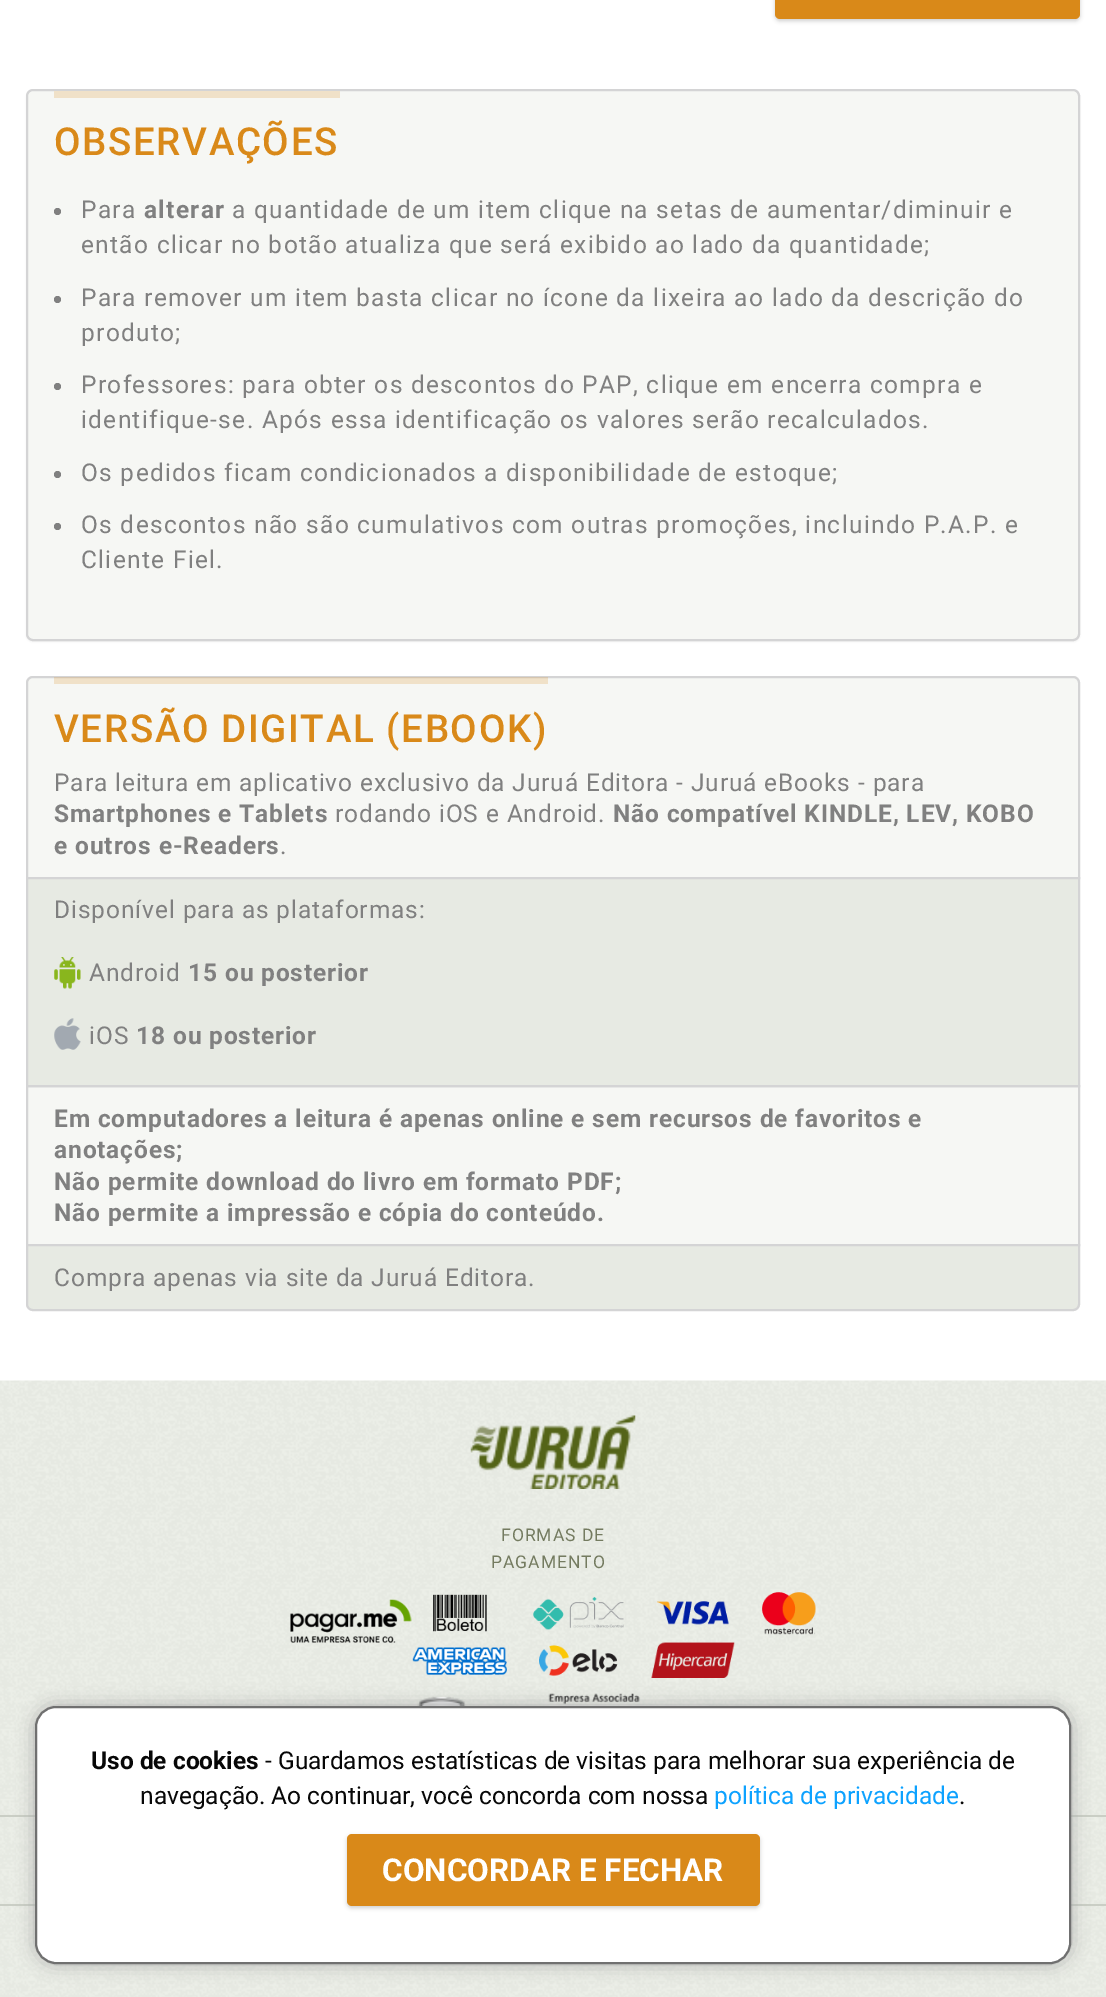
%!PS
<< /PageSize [1106 1997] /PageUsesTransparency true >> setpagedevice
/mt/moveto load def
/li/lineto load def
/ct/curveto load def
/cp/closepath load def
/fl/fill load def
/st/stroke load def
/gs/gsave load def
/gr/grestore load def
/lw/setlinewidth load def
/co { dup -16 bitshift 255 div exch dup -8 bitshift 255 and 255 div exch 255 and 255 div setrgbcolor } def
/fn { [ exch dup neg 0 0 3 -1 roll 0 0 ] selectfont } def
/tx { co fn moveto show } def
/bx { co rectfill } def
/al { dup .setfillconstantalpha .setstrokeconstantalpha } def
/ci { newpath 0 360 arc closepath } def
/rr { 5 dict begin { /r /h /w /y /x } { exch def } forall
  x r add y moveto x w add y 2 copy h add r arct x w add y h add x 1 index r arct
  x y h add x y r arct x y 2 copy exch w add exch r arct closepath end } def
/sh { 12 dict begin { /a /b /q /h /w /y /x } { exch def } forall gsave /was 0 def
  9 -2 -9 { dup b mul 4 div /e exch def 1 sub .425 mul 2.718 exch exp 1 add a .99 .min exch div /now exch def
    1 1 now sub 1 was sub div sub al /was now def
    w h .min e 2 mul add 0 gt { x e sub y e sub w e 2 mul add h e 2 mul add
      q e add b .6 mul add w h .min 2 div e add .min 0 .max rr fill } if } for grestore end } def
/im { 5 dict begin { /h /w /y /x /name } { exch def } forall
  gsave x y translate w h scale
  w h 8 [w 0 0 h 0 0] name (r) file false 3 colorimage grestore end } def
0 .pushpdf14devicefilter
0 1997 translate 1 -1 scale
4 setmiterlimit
0 0 1106 1997 16#FFFFFF bx
16#000000 co
775 -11 305 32 5 2 .19 sh
16#D98919 co
775 -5 305 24 5 rr fl
16#000000 co
26 91 1054 551 7 1 .05 sh
16#F6F7F4 co
27 90 1052 550 6 rr gs fl gr
16#D4D4D5 co
2 lw
st
54 91 286 7 16#F0E1C8 bx
16#808080 co
57.5 211.5 3.5 ci fl
57.5 299.5 3.5 ci fl
57.5 386.5 3.5 ci fl
57.5 474.5 3.5 ci fl
57.5 526.5 3.5 ci fl
16#F6F7F4 co
26 676 1054 635 7 rr fl
16#D4D4D5 co
33 677 mt 1073 677 li 1076.5 677 1079 679.5 1079 683 ct 1079 878 li 27 878 li 27 683 li 27 679.5 29.5 677 33 677 ct cp st
0.2 al
54 677 494 7 16#D98919 bx
1 al
16#E7EAE3 co
27 878 mt 1079 878 li 1079 1086 li 27 1086 li cp gs fl gr
16#D4D4D5 co
st
(media/1.raw) 54 957 27 32 im
(media/2.raw) 54 1018 27 32 im
27 1086 1052 159 rectstroke
16#E7EAE3 co
27 1245 mt 1079 1245 li 1079 1304 li 1079 1307.5 1076.5 1310 1073 1310 ct 33 1310 li 29.5 1310 27 1307.5 27 1304 ct cp gs fl gr
16#D4D4D5 co
st
(media/3.raw) 0 1380 1106 617 im
(media/4.raw) 470 1415 166 74 im
(media/5.raw) 290 1592 526 86 im
(media/6.raw) 417 1696 49 10 im
(media/7.raw) 547 1693 162 13 im
0 1815 1106 2 16#CACEC5 bx
0 1904 1106 2 16#CACEC5 bx
16#AAAAAA co
35 1706 1036 258 21 9 1 sh
16#FFFFFF co
36 1707 1034 256 20 rr gs fl gr
16#707070 co
st
16#000000 co
347 1836 413 72 5 2 .19 sh
16#D98919 co
347 1834 413 72 5 rr fl
/Roboto-Medium 38.5 fn
54 155 mt 1.6 0 (OBSERVAÇÕES) ashow
/Roboto-Regular 24.5 fn
16#808080 co
81 218 mt 1.3 0 (Para) ashow
/Roboto-Bold 24.5 fn
144 218 mt 1.3 0 (alterar) ashow
/Roboto-Regular 24.5 fn
232 218 mt 1.3 0 (a quantidade de um item clique na setas de aumentar/diminuir e) ashow
81 253 mt 1.3 0 (então clicar no botão atualiza que será exibido ao lado da quantidade;) ashow
81 306 mt 1.3 0 (Para remover um item basta clicar no ícone da lixeira ao lado da descrição do) ashow
81 341 mt 1.3 0 (produto;) ashow
81 393 mt 1.3 0 (Professores: para obter os descontos do PAP, clique em encerra compra e) ashow
81 428 mt 1.3 0 (identifique-se. Após essa identificação os valores serão recalculados.) ashow
81 481 mt 1.3 0 (Os pedidos ficam condicionados a disponibilidade de estoque;) ashow
81 533 mt 1.3 0 (Os descontos não são cumulativos com outras promoções, incluindo P.A.P. e) ashow
81 568 mt 1.3 0 (Cliente Fiel.) ashow
/Roboto-Medium 38.5 fn
16#D98919 co
54 742 mt 1.6 0 (VERSÃO DIGITAL \(EBOOK\)) ashow
/Roboto-Regular 24.5 fn
16#808080 co
54 791 mt .88 0 (Para leitura em aplicativo exclusivo da Juruá Editora - Juruá eBooks - para) ashow
/Roboto-Bold 24.5 fn
54 822 mt .88 0 (Smartphones e Tablets) ashow
/Roboto-Regular 24.5 fn
335 822 mt .88 0 (rodando iOS e Android.) ashow
/Roboto-Bold 24.5 fn
613 822 mt .88 0 (Não compatível KINDLE, LEV, KOBO) ashow
54 854 mt .88 0 (e outros e-Readers) ashow
/Roboto-Regular 24.5 fn
280 854 mt .88 0 (.) ashow
54 918 mt .88 0 (Disponível para as plataformas:) ashow
89 981 mt .88 0 (Android) ashow
/Roboto-Bold 24.5 fn
188 981 mt .88 0 (15 ou posterior) ashow
/Roboto-Regular 24.5 fn
89 1044 mt .88 0 (iOS) ashow
/Roboto-Bold 24.5 fn
136 1044 mt .88 0 (18 ou posterior) ashow
54 1127 mt .88 0 (Em computadores a leitura é apenas online e sem recursos de favoritos e) ashow
54 1158 mt .88 0 (anotações;) ashow
54 1190 mt .88 0 (Não permite download do livro em formato PDF;) ashow
54 1221 mt .88 0 (Não permite a impressão e cópia do conteúdo.) ashow
/Roboto-Regular 24.5 fn
54 1286 mt .88 0 (Compra apenas via site da Juruá Editora.) ashow
/Roboto-Regular 17.5 fn
16#747B60 co
501 1541 mt 1 0 (FORMAS DE) ashow
491 1568 mt 1 0 (PAGAMENTO) ashow
(Uso de cookies) 91 1769 /Roboto-Bold 24.5 16#070707 tx
(- Guardamos estatísticas de visitas para melhorar sua experiência de) 265 1769 /Roboto-Regular 24.5 16#070707 tx
(navegação. Ao continuar, você concorda com nossa) 140 1804 /Roboto-Regular 24.5 16#070707 tx
(política de privacidade) 714 1804 /Roboto-Regular 24.5 16#0DA2FF tx
(.) 959 1804 /Roboto-Regular 24.5 16#070707 tx
(CONCORDAR E FECHAR) 382 1881 /Roboto-Bold 31.5 16#FFFFFF tx
.poppdf14devicefilter showpage
